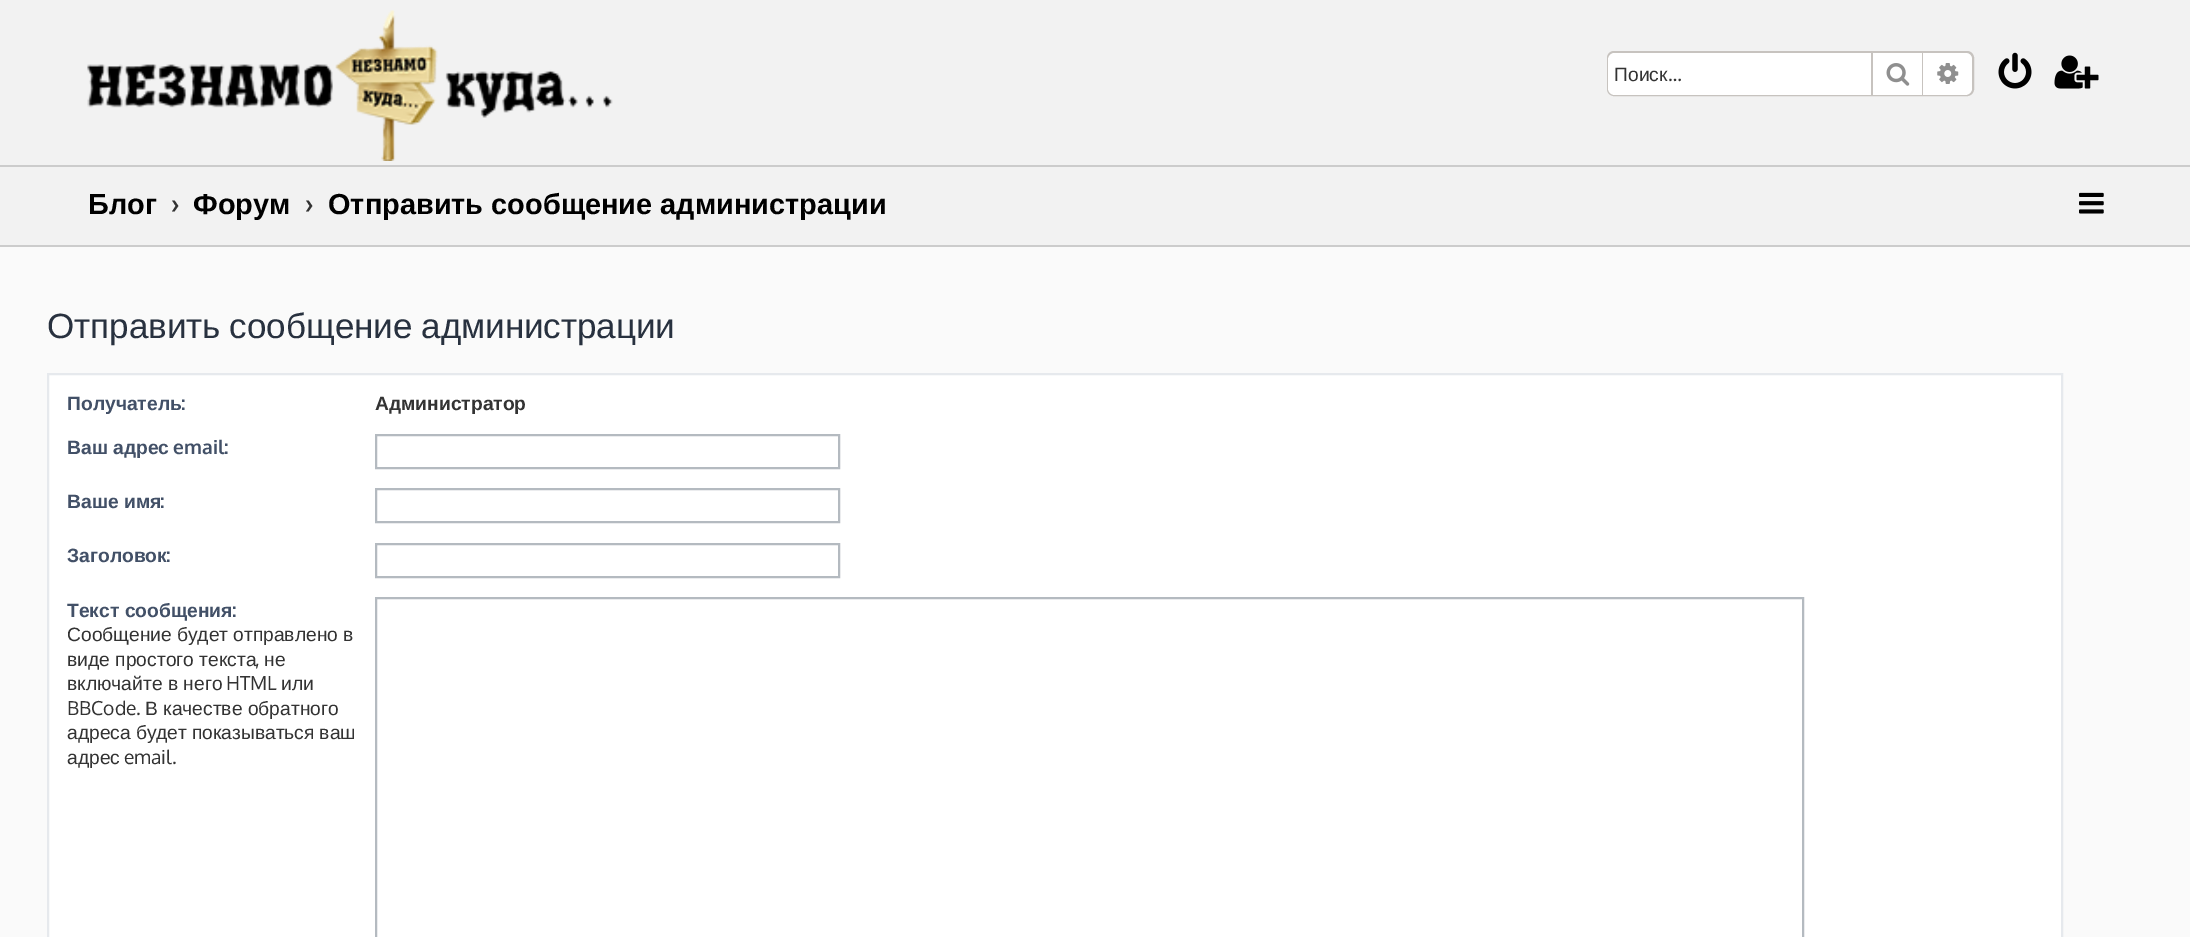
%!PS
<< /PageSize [2190 937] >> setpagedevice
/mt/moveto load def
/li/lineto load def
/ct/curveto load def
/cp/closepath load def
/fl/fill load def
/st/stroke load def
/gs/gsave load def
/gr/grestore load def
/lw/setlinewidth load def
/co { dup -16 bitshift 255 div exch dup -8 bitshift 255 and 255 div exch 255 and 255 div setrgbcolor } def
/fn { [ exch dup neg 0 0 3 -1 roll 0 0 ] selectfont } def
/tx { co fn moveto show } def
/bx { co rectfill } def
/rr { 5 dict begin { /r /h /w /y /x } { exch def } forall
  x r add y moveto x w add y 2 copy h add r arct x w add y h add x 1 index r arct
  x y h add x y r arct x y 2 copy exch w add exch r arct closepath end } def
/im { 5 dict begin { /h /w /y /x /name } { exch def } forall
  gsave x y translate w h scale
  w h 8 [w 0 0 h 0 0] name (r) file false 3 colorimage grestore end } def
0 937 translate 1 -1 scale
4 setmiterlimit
0 0 2190 937 16#FAFAFA bx
0 0 2190 165 16#F2F2F2 bx
0 165 2190 2 16#CCCCCC bx
(media/1.raw) 87 10 526 151 im
16#C7C3BF co
2 lw
1608 52 365 43 6 rr st
16#FFFFFF co
1615 53 mt 1871 53 li 1871 95 li 1615 95 li 1611 95 1608 92 1608 88 ct 1608 60 li 1608 56 1611 53 1615 53 ct cp fl
1873 53 49 42 16#FFFFFF bx
1922 53 1 42 16#C7C3BF bx
1871 53 2 42 16#C7C3BF bx
(media/2.raw) 1886 63 24 23 im
16#FFFFFF co
1923 53 mt 1965 53 li 1969 53 1972 56 1972 60 ct 1972 88 li 1972 92 1969 95 1965 95 ct 1923 95 li cp fl
(media/3.raw) 1937 63 22 21 im
(media/4.raw) 1998 52 34 37 im
(media/5.raw) 2054 55 45 34 im
0 167 2190 78 16#F2F2F2 bx
0 245 2190 2 16#CCCCCC bx
(media/6.raw) 2079 192 25 22 im
16#FFFFFF co
48 374 mt 2062 374 li 2062 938 li 48 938 li cp gs fl gr
16#E6E9ED co
st
16#B4BAC0 co
376 435 463 33 rectstroke
376 489 463 33 rectstroke
376 544 463 33 rectstroke
376 598 1427 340 rectstroke
(Поиск) 1614 81 /LiberationSans-Regular 19.25 16#333333 tx
(…) 1668 81 /Oxygen-Regular 19.25 16#333333 tx
(Блог) 88 214 /LiberationSans-Bold 28.9 16#000000 tx
(›) 171 214 /Oxygen-Bold 28.9 16#333333 tx
(Форум) 193 214 /LiberationSans-Bold 28.9 16#000000 tx
(›) 305 214 /Oxygen-Bold 28.9 16#333333 tx
(Отправить сообщение администрации) 328 214 /LiberationSans-Bold 28.9 16#000000 tx
/LiberationSans-Regular 35 fn
16#28313F co
47 338 mt -1 0 32 (Отправить сообщение администрации) widthshow
(Получатель) 67 410 /LiberationSans-Bold 19.25 16#425067 tx
(:) 181 410 /Oxygen-Bold 19.25 16#425067 tx
(Администратор) 375 410 /LiberationSans-Bold 19.25 16#333333 tx
(Ваш адрес) 67 454 /LiberationSans-Bold 19.25 16#425067 tx
(email:) 173 454 /Oxygen-Bold 19.25 16#425067 tx
(Ваше имя) 67 508 /LiberationSans-Bold 19.25 16#425067 tx
(:) 160 508 /Oxygen-Bold 19.25 16#425067 tx
(Заголовок) 67 562 /LiberationSans-Bold 19.25 16#425067 tx
(:) 166 562 /Oxygen-Bold 19.25 16#425067 tx
gs
67 590 1977 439 rectclip
(Текст сообщения) 67 617 /LiberationSans-Bold 19.25 16#425067 tx
gr
(:) 232 617 /Oxygen-Bold 19.25 16#425067 tx
/LiberationSans-Regular 19.25 fn
16#333333 co
67 641 mt -.5 0 32 (Сообщение будет отправлено в) widthshow
(виде простого текста) 67 666 /LiberationSans-Regular 19.25 16#333333 tx
(,) 255 666 /Oxygen-Regular 19.25 16#333333 tx
(не) 264 666 /LiberationSans-Regular 19.25 16#333333 tx
(включайте в него) 67 690 /LiberationSans-Regular 19.25 16#333333 tx
(HTML) 226 690 /Oxygen-Regular 19.25 16#333333 tx
(или) 281 690 /LiberationSans-Regular 19.25 16#333333 tx
(BBCode.) 67 715 /Oxygen-Regular 19.25 16#333333 tx
(В качестве обратного) 145 715 /LiberationSans-Regular 19.25 16#333333 tx
67 739 mt -.5 0 32 (адреса будет показываться ваш) widthshow
(адрес) 67 764 /LiberationSans-Regular 19.25 16#333333 tx
(email.) 124 764 /Oxygen-Regular 19.25 16#333333 tx
showpage
